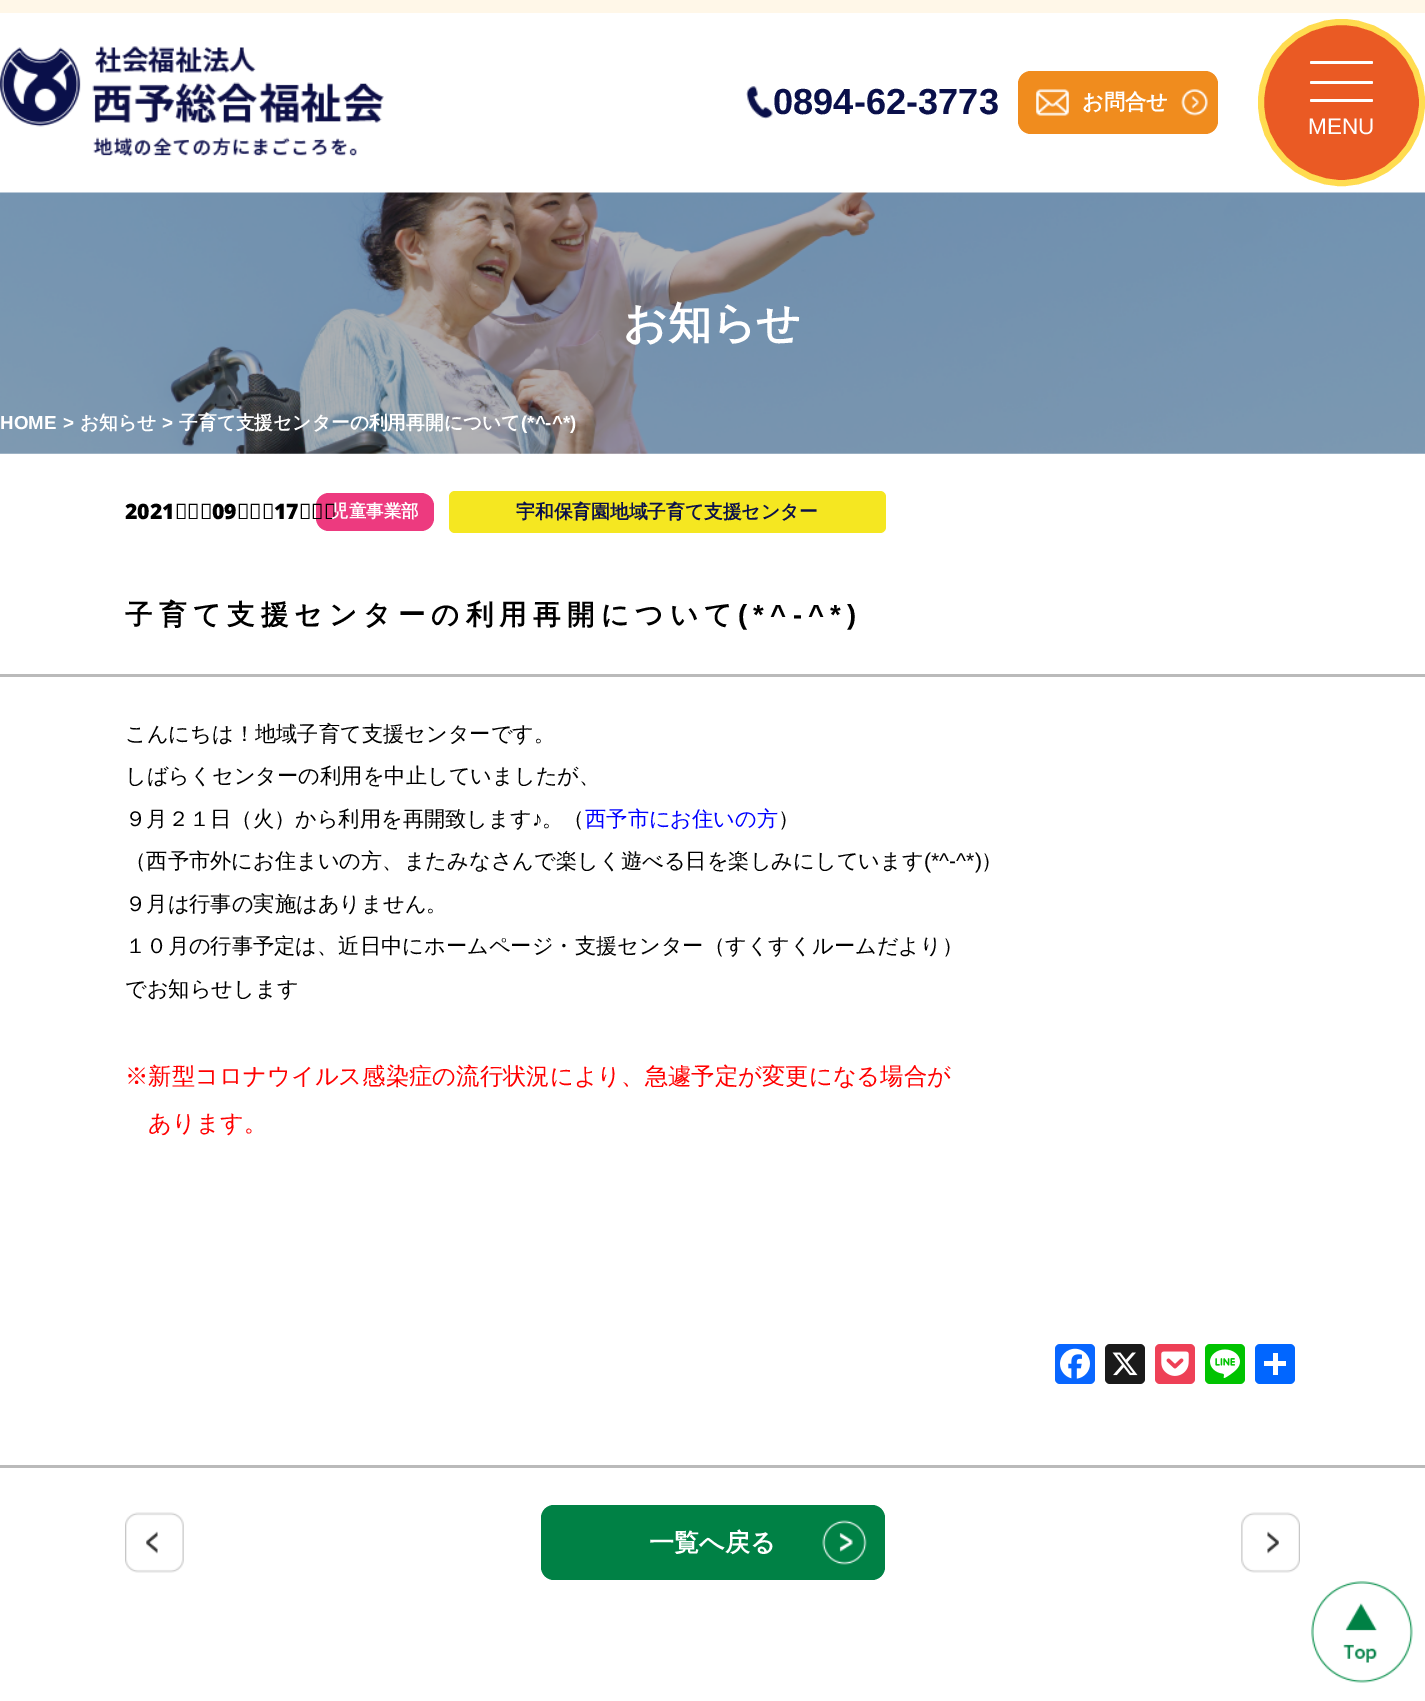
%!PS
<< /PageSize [1425 1701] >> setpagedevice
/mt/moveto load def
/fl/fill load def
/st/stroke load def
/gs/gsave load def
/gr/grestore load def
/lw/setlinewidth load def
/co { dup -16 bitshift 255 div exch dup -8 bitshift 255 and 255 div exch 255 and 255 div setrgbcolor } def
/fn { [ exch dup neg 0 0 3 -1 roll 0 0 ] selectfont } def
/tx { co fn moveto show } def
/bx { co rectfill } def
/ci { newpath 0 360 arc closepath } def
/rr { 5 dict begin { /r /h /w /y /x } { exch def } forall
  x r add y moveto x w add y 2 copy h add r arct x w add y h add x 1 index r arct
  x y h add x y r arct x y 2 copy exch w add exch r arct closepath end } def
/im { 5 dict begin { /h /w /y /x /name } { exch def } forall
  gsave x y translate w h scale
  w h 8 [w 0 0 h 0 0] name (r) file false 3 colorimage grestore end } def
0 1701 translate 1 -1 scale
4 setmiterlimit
0 0 1425 1701 16#FFFFFF bx
0 0 1425 13 16#FFF7E8 bx
(media/1.raw) 0 46 384 111 im
(media/2.raw) 746 86 27 33 im
16#F08C1E co
1018 71 200 63 13 rr fl
(media/3.raw) 1036 89 33 27 im
(media/4.raw) 1181 89 27 27 im
16#EA5A24 co
1341.5 102.5 80.5 ci gs fl gr
16#FFDC50 co
6 lw
st
16#FFFFFF co
1310 99 63 3 1.5 rr fl
1310 61 63 3 1.5 rr fl
1310 81 63 3 1.5 rr fl
(media/5.raw) 0 192 1425 262 im
16#ED3A7F co
316 493 118 38 13 rr fl
16#F5E721 co
449 491 437 42 6 rr fl
0 674 1425 3 16#BABABA bx
0 1465 1425 3 16#BABABA bx
16#0866FF co
1055 1344 40 40 5 rr fl
(media/6.raw) 1060 1348 30 31 im
16#1A1A1A co
1105 1344 40 40 5 rr fl
(media/7.raw) 1112 1352 26 24 im
16#EE4056 co
1155 1344 40 40 5 rr fl
(media/8.raw) 1161 1351 28 25 im
16#00C300 co
1205 1344 40 40 5 rr fl
(media/9.raw) 1210 1349 30 29 im
16#0166FF co
1255 1344 40 40 5 rr fl
1273 1353 5 22 16#FFFFFF bx
1264 1361 22 5 16#FFFFFF bx
(media/10.raw) 125 1512 59 61 im
16#008145 co
541 1505 344 75 13 rr fl
(media/11.raw) 822 1520 45 45 im
(media/12.raw) 1241 1512 59 61 im
(media/13.raw) 1311 1581 102 102 im
(0894-62-3773) 773 114 /LiberationSans-Bold 36.25 16#0A104A tx
(お問合せ) 1082 109 /WenQuanYiZenHei-Bold 21.25 16#FFFFFF tx
(MENU) 1308 134 /LiberationSans-Regular 22.5 16#FFFFFF tx
(お知らせ) 623 338 /WenQuanYiZenHei-Bold 43.75 16#FFFFFF tx
(HOME) 0 429 /LiberationSans-Bold 18.75 16#FFFFFF tx
(>) 63 429 /LiberationSans-Bold 18.75 16#FFFFFF tx
(お知らせ) 80 429 /WenQuanYiZenHei-Bold 18.75 16#FFFFFF tx
(>) 162 429 /LiberationSans-Bold 18.75 16#FFFFFF tx
(子育て支援センターの利用再開について) 179 429 /WenQuanYiZenHei-Bold 18.75 16#FFFFFF tx
(\(*^-^*\)) 521 429 /LiberationSans-Bold 18.75 16#FFFFFF tx
(2021年09月17日) 125 519 /NotoSans-Black 21.25 16#000000 tx
(児童事業部) 331 517 /WenQuanYiZenHei-Bold 17.5 16#FFFFFF tx
(宇和保育園地域子育て支援センター) 516 518 /WenQuanYiZenHei-Bold 18.75 16#0A104A tx
/WenQuanYiZenHei-Bold 27.5 fn
16#000000 co
125 624 mt 6.25 0 (子育て支援センターの利用再開について) ashow
/LiberationSans-Bold 27.5 fn
738 624 mt 6.25 0 (\(*^-^*\)) ashow
(こんにちは！地域子育て支援センターです。) 125 741 /WenQuanYiZenHei-Medium 21.25 16#000000 tx
(しばらくセンターの利用を中止していましたが、) 125 783 /WenQuanYiZenHei-Medium 21.25 16#000000 tx
(９月２１日（火）から利用を再開致します) 125 826 /WenQuanYiZenHei-Medium 21.25 16#000000 tx
(♪) 532 826 /LiberationSans-Regular 21.25 16#000000 tx
(。（) 542 826 /WenQuanYiZenHei-Medium 21.25 16#000000 tx
(西予市にお住いの方) 585 826 /WenQuanYiZenHei-Medium 21.25 16#0000FF tx
(）) 778 826 /WenQuanYiZenHei-Medium 21.25 16#000000 tx
(（西予市外にお住まいの方、またみなさんで楽しく遊べる日を楽しみにしています) 125 868 /WenQuanYiZenHei-Medium 21.25 16#000000 tx
(\(*^-^*\)) 924 868 /LiberationSans-Regular 21.25 16#000000 tx
(）) 981 868 /WenQuanYiZenHei-Medium 21.25 16#000000 tx
(９月は行事の実施はありません。) 125 911 /WenQuanYiZenHei-Medium 21.25 16#000000 tx
(１０月の行事予定は、近日中にホームページ・支援センター（すくすくルームだより）) 125 953 /WenQuanYiZenHei-Medium 21.25 16#000000 tx
(でお知らせします) 125 996 /WenQuanYiZenHei-Medium 21.25 16#000000 tx
(※新型コロナウイルス感染症の流行状況により、急遽予定が変更になる場合が) 125 1084 /WenQuanYiZenHei-Medium 23.35 16#FF0000 tx
(あります。) 148 1131 /WenQuanYiZenHei-Medium 23.35 16#FF0000 tx
(一覧へ戻る) 649 1551 /WenQuanYiZenHei-Bold 25 16#FFFFFF tx
showpage
